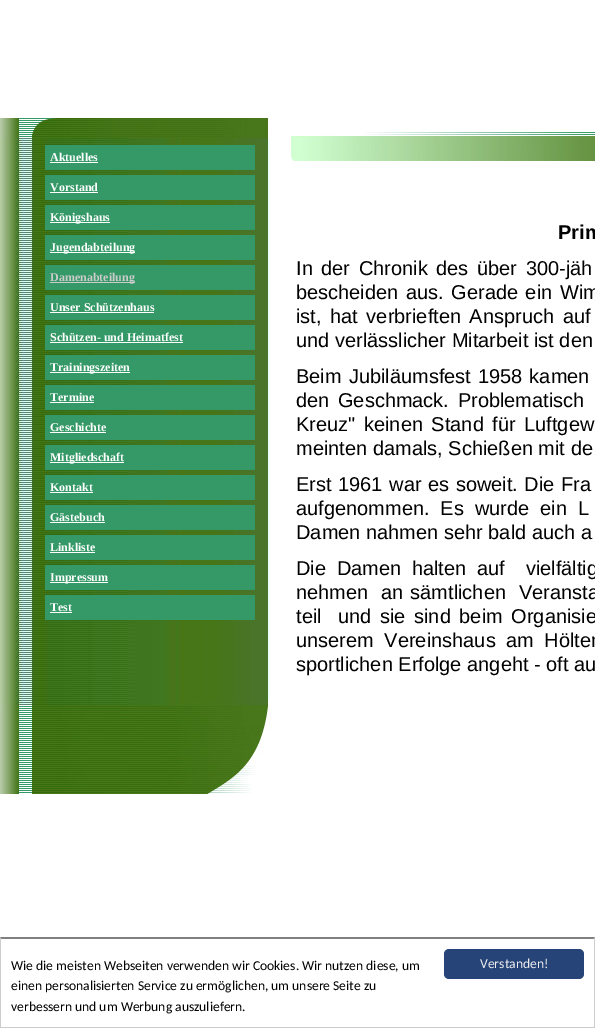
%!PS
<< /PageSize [595 1028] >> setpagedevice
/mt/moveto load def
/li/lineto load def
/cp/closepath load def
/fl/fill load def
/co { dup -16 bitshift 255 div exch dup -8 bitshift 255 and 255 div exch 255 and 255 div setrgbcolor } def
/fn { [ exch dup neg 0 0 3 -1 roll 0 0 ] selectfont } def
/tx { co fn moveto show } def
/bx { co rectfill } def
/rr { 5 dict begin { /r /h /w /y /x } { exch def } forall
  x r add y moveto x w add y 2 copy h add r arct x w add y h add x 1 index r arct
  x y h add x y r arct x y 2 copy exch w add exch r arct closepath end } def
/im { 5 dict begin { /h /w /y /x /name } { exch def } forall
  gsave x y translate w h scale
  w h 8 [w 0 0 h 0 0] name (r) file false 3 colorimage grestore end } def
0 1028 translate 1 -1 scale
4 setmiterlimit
0 0 595 1028 16#FFFFFF bx
(media/1.raw) 0 138 270 562 im
(media/2.raw) 0 118 270 20 im
45 145 210 25 16#359967 bx
50 162 48 1 16#FFFFFF bx
45 175 210 25 16#359967 bx
50 192 48 1 16#FFFFFF bx
45 205 210 25 16#359967 bx
50 222 60 1 16#FFFFFF bx
45 235 210 25 16#359967 bx
50 252 85 1 16#FFFFFF bx
45 265 210 25 16#359967 bx
50 282 85 1 16#CCCCCC bx
45 295 210 25 16#359967 bx
50 312 104 1 16#FFFFFF bx
45 325 210 25 16#359967 bx
50 342 133 1 16#FFFFFF bx
45 355 210 25 16#359967 bx
50 372 80 1 16#FFFFFF bx
45 385 210 25 16#359967 bx
50 402 44 1 16#FFFFFF bx
45 415 210 25 16#359967 bx
50 432 56 1 16#FFFFFF bx
45 445 210 25 16#359967 bx
50 462 74 1 16#FFFFFF bx
45 475 210 25 16#359967 bx
50 492 43 1 16#FFFFFF bx
45 505 210 25 16#359967 bx
50 522 55 1 16#FFFFFF bx
45 535 210 25 16#359967 bx
50 552 45 1 16#FFFFFF bx
45 565 210 25 16#359967 bx
50 582 58 1 16#FFFFFF bx
45 595 210 25 16#359967 bx
50 612 22 1 16#FFFFFF bx
(media/3.raw) 291 129 304 32 im
(media/4.raw) 0 700 272 94 im
16#808080 co
0 937 mt 595 937 li 594 939 li 1 939 li cp fl
16#CCCCCC co
595 937 mt 595 1028 li 594 1027 li 594 939 li cp fl
0 1027 595 1 16#CCCCCC bx
0 1028 mt 0 937 li 1 939 li 1 1027 li cp fl
16#274479 co
444 949 140 30 5 rr fl
(Aktuelles) 50 161 /LiberationSerif-Bold 12 16#FFFFFF tx
(Vorstand) 50 191 /LiberationSerif-Bold 12 16#FFFFFF tx
(Königshaus) 50 221 /LiberationSerif-Bold 12 16#FFFFFF tx
(Jugendabteilung) 50 251 /LiberationSerif-Bold 12 16#FFFFFF tx
(Damenabteilung) 50 281 /LiberationSerif-Bold 12 16#CCCCCC tx
(Unser Schützenhaus) 50 311 /LiberationSerif-Bold 12 16#FFFFFF tx
(Schützen- und Heimatfest) 50 341 /LiberationSerif-Bold 12 16#FFFFFF tx
(Trainingszeiten) 50 371 /LiberationSerif-Bold 12 16#FFFFFF tx
(Termine) 50 401 /LiberationSerif-Bold 12 16#FFFFFF tx
(Geschichte) 50 431 /LiberationSerif-Bold 12 16#FFFFFF tx
(Mitgliedschaft) 50 461 /LiberationSerif-Bold 12 16#FFFFFF tx
(Kontakt) 50 491 /LiberationSerif-Bold 12 16#FFFFFF tx
(Gästebuch) 50 521 /LiberationSerif-Bold 12 16#FFFFFF tx
(Linkliste) 50 551 /LiberationSerif-Bold 12 16#FFFFFF tx
(Impressum) 50 581 /LiberationSerif-Bold 12 16#FFFFFF tx
(Test) 50 611 /LiberationSerif-Bold 12 16#FFFFFF tx
(Prim) 558 239 /LiberationSans-Bold 20 16#000000 tx
/LiberationSans-Regular 20 fn
296 275 mt 3 0 32 (In der Chronik des über 300-jäh) widthshow
296 299 mt 2 0 32 (bescheiden aus. Gerade ein Wim) widthshow
296 323 mt 3 0 32 (ist, hat verbrieften Anspruch auf) widthshow
(und verlässlicher Mitarbeit ist den) 296 347 /LiberationSans-Regular 20 16#000000 tx
296 383 mt 1.5 0 32 (Beim Jubiläumsfest 1958 kamen) widthshow
296 407 mt 3 0 32 (den Geschmack. Problematisch) widthshow
296 431 mt 3 0 32 (Kreuz" keinen Stand für Luftgew) widthshow
(meinten damals, Schießen mit de) 296 455 /LiberationSans-Regular 20 16#000000 tx
296 491 mt 1 0 32 (Erst 1961 war es soweit. Die Fra) widthshow
296 515 mt 5.5 0 32 (aufgenommen. Es wurde ein L) widthshow
(Damen nahmen sehr bald auch a) 296 539 /LiberationSans-Regular 20 16#000000 tx
296 575 mt 5 0 32 (Die Damen halten auf  vielfältig) widthshow
296 599 mt 1 0 32 (nehmen  an sämtlichen  Veransta) widthshow
(teil) 296 623 /LiberationSans-Regular 20 16#000000 tx
338 623 mt 3 0 32 (und sie sind beim Organisie) widthshow
296 647 mt 5 0 32 (unserem Vereinshaus am Hölter) widthshow
(sportlichen Erfolge angeht - oft au) 296 671 /LiberationSans-Regular 20 16#000000 tx
(Wie die meisten Webseiten verwenden wir Cookies. Wir nutzen diese, um) 11 970 /Carlito-Regular 13.6 16#000000 tx
(einen personalisierten Service zu ermöglichen, um unsere Seite zu) 11 990 /Carlito-Regular 13.6 16#000000 tx
(verbessern und um Werbung auszuliefern.) 11 1011 /Carlito-Regular 13.6 16#000000 tx
(Verstanden!) 480 968 /Carlito-Regular 13.6 16#EEEEEE tx
showpage
